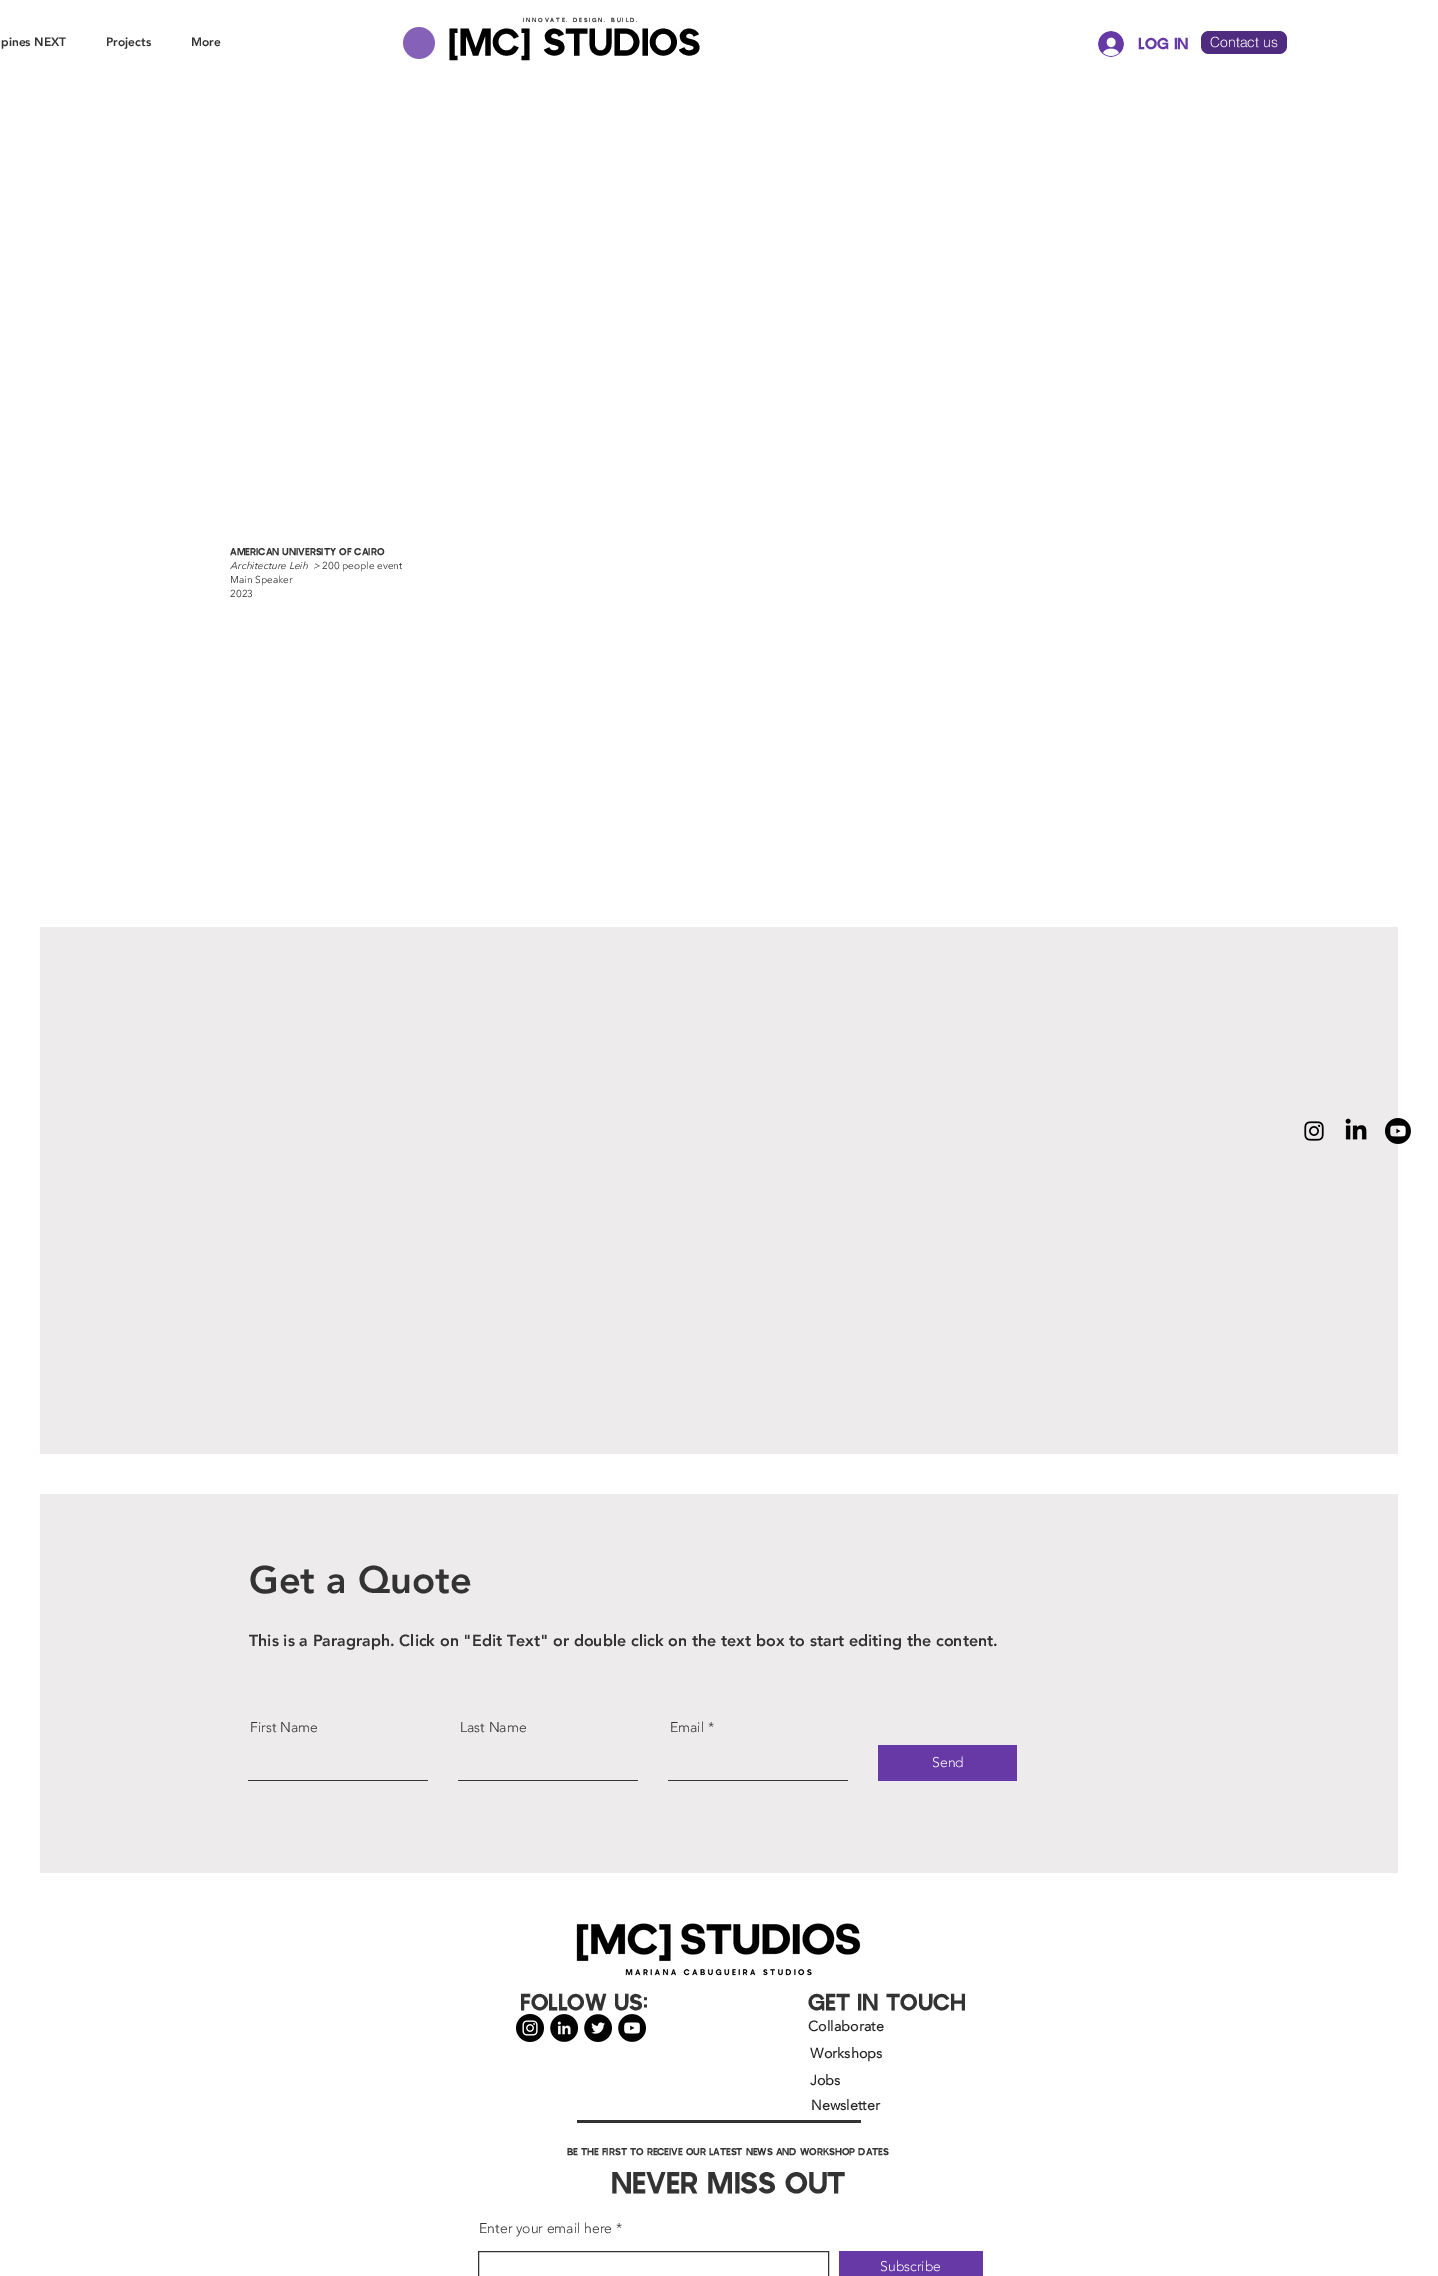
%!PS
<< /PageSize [1438 2276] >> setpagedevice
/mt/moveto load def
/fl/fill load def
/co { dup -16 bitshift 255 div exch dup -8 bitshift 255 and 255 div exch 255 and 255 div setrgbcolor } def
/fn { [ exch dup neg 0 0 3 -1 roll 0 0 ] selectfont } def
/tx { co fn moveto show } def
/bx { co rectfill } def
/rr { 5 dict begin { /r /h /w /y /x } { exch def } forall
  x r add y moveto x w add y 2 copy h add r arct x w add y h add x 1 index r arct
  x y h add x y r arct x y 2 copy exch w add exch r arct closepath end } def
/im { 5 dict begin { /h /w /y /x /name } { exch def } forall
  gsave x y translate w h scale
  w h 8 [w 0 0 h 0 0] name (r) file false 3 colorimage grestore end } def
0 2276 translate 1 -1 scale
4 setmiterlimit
0 0 1438 2276 16#FFFFFF bx
(media/1.raw) 403 27 32 32 im
(media/2.raw) 1098 31 26 26 im
16#4F2C80 co
1201 31 86 23 8 rr fl
40 927 1358 527 16#EDEBEB bx
40 1494 1358 379 16#EDEBEB bx
248 1780 180 1 16#333333 bx
458 1780 180 1 16#333333 bx
668 1780 180 1 16#333333 bx
878 1745 139 36 16#6639A6 bx
(media/3.raw) 1304 1121 20 20 im
(media/4.raw) 1345 1118 22 22 im
(media/5.raw) 1385 1118 26 26 im
(media/6.raw) 576 1923 285 53 im
(media/7.raw) 516 2014 28 28 im
(media/8.raw) 550 2014 28 28 im
(media/9.raw) 584 2014 28 28 im
(media/10.raw) 618 2014 28 28 im
577 2120 284 3 16#333333 bx
478.5 2251.5 350 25 rectstroke
839 2251 144 25 16#6639A6 bx
/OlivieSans-Regular 6 fn
16#333333 co
523 22 mt 1.8 0 (innovate. design. build.) ashow
(pines NEXT) 1 46 /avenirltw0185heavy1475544-Black 12 16#333333 tx
(Projects) 106 46 /avenirltw0185heavy1475544-Black 12 16#333333 tx
(More) 191 46 /avenirltw0185heavy1475544-Black 12 16#333333 tx
([MC] STUDIOS) 448 55 /OlivieSans-Regular 38 16#000000 tx
(Log In) 1138 49 /OlivieSans-Regular 16 16#6639A6 tx
(Contact us) 1210 47 /helvetica-Light 14 16#FFFFFF tx
(American University of Cairo) 230 555 /OlivieSans-Regular 10 16#333333 tx
(Architecture Leih  >) 230 569 /AvenirNext-Italic 10 16#333333 tx
(200 people event) 322 569 /AvenirNext-Regular 10 16#333333 tx
(Main Speaker) 230 583 /AvenirNext-Regular 10 16#333333 tx
(2023) 230 597 /AvenirNext-Regular 10 16#333333 tx
(Get a Quote) 249 1593 /avenirltw0185heavy1475544-Black 38 16#333333 tx
(This is a Paragraph. Click on "Edit Text" or double click on the text box to start editing the content.) 249 1646 /avenirltw0185heavy1475544-Black 16 16#333333 tx
(First Name) 250 1732 /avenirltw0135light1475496-Light 14 16#333333 tx
(Last Name) 460 1732 /avenirltw0135light1475496-Light 14 16#333333 tx
(Email *) 670 1732 /avenirltw0135light1475496-Light 14 16#333333 tx
(Send) 932 1767 /avenirltw0135light1475496-Light 14 16#FFFFFF tx
(FOLLOW US:) 520 2010 /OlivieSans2-Regular 12 16#333333 tx
(Get in Touch) 808 2010 /OlivieSans2-Regular 12 16#333333 tx
(Collaborate) 808 2031 /AvenirNext-Bold 14 16#282626 tx
(Workshops) 810 2058 /AvenirNext-Bold 14 16#282626 tx
(Jobs) 810 2085 /AvenirNext-Bold 14 16#282626 tx
(Newsletter) 811 2110 /AvenirNext-Bold 14 16#282626 tx
(be the first to receive our latest news and workshop dates) 567 2155 /OlivieSans-Regular 10 16#333333 tx
(never miss out) 611 2193 /OlivieSans-Regular 30 16#333333 tx
(Enter your email here *) 479 2233 /avenirltw0135light1475496-Light 14 16#333333 tx
(Subscribe) 880 2271 /avenirltw0135light1475496-Light 14 16#FFFFFF tx
showpage
